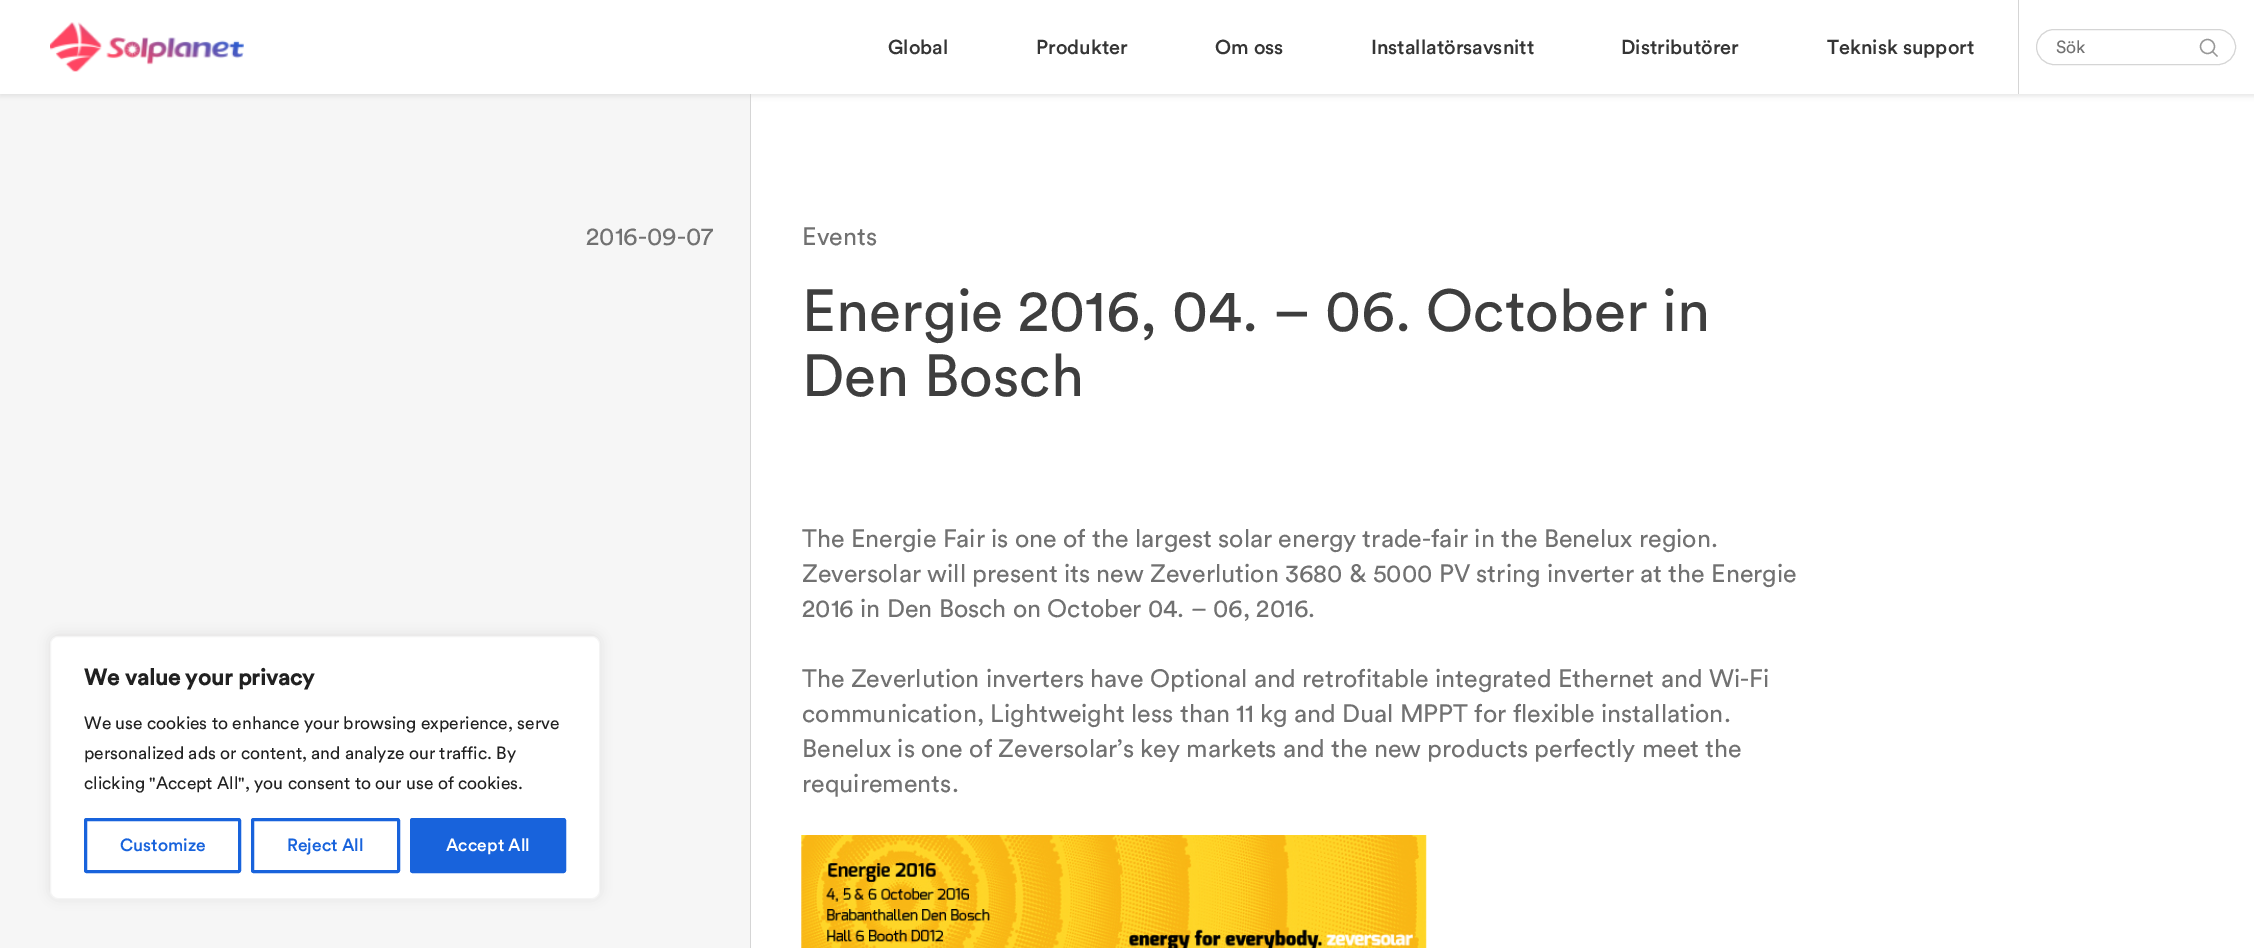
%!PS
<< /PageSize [2254 948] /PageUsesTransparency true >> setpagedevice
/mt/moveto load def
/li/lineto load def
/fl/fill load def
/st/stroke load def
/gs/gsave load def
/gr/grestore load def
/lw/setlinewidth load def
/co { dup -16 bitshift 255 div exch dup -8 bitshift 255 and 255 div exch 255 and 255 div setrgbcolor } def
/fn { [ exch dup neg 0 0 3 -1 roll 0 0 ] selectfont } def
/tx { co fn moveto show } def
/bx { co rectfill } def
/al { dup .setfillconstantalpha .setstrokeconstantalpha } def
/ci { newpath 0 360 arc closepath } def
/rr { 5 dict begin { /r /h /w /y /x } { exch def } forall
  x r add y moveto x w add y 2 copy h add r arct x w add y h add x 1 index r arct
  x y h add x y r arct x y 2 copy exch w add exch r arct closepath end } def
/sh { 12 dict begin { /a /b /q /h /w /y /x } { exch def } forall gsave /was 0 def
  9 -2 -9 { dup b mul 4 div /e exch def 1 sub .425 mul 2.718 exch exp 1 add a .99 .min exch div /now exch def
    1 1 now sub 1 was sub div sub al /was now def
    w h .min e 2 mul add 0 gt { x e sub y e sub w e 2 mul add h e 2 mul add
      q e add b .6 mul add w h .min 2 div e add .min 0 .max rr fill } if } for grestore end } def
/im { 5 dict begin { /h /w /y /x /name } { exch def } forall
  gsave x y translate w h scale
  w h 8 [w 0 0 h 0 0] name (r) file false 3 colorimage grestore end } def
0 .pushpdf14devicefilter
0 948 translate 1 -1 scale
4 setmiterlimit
0 0 2254 948 16#FFFFFF bx
0 94 750 854 16#F6F6F6 bx
750 94 1 854 16#D5D5D5 bx
16#CCCCCC co
0 3 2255 93 0 2.5 .5 sh
0 0 2254 94 16#FFFFFF bx
(media/1.raw) 50 22 194 50 im
2018 0 1 94 16#D5D5D5 bx
2036.5 29.5 199 35 17.5 rr st
16#979797 co
1.3 lw
2207.5 46.5 7 ci st
2212.5 51.5 mt 2217.5 56.5 li st
16#ACABAB co
50 635 550 263 8 6 .3 sh
16#FFFFFF co
50.5 636.5 549 262 7.5 rr gs fl gr
16#F4F4F4 co
1 lw
st
16#1863DC co
3 lw
85.5 819.5 154 52 1 rr st
252.5 819.5 146 52 1 rr st
411.5 819.5 153 52 1 rr gs fl gr
st
(media/2.raw) 801 835 626 113 im
(Global) 888 54 /Circular-Medium 20 16#353535 tx
(Produkter) 1036 54 /Circular-Medium 20 16#353535 tx
(Om oss) 1215 54 /Circular-Medium 20 16#353535 tx
(Installatörsavsnitt) 1371 54 /Circular-Medium 20 16#353535 tx
(Distributörer) 1621 54 /Circular-Medium 20 16#353535 tx
(Teknisk support) 1827 54 /Circular-Medium 20 16#353535 tx
(Sök) 2056 53 /Circular-Regular 17.5 16#717171 tx
(We value your privacy) 84 685 /Circular-Bold 22.5 16#212121 tx
(We use cookies to enhance your browsing experience, serve) 84 729 /Circular-Regular 17.5 16#212121 tx
(personalized ads or content, and analyze our traffic. By) 84 759 /Circular-Regular 17.5 16#212121 tx
(clicking "Accept All", you consent to our use of cookies.) 84 789 /Circular-Regular 17.5 16#212121 tx
(Customize) 120 851 /Circular-Medium 17.5 16#1863DC tx
(Reject All) 287 851 /Circular-Medium 17.5 16#1863DC tx
(Accept All) 446 851 /Circular-Medium 17.5 16#FFFFFF tx
(2016-09-07) 586 245 /Circular-Regular 25 16#717171 tx
(Events) 802 245 /Circular-Regular 25 16#717171 tx
(Energie 2016, 04. – 06. October in) 802 331 /Circular-Regular 58.75 16#3E3E3E tx
(Den Bosch) 802 396 /Circular-Regular 58.75 16#3E3E3E tx
(The Energie Fair is one of the largest solar energy trade-fair in the Benelux region.) 802 547 /Circular-Regular 25 16#717171 tx
(Zeversolar will present its new Zeverlution 3680 & 5000 PV string inverter at the Energie) 802 582 /Circular-Regular 25 16#717171 tx
(2016 in Den Bosch on October 04. – 06, 2016.) 802 617 /Circular-Regular 25 16#717171 tx
(The Zeverlution inverters have Optional and retrofitable integrated Ethernet and Wi-Fi) 802 687 /Circular-Regular 25 16#717171 tx
(communication, Lightweight less than 11 kg and Dual MPPT for flexible installation.) 802 722 /Circular-Regular 25 16#717171 tx
(Benelux is one of Zeversolar’s key markets and the new products perfectly meet the) 802 757 /Circular-Regular 25 16#717171 tx
(requirements.) 802 792 /Circular-Regular 25 16#717171 tx
.poppdf14devicefilter showpage
